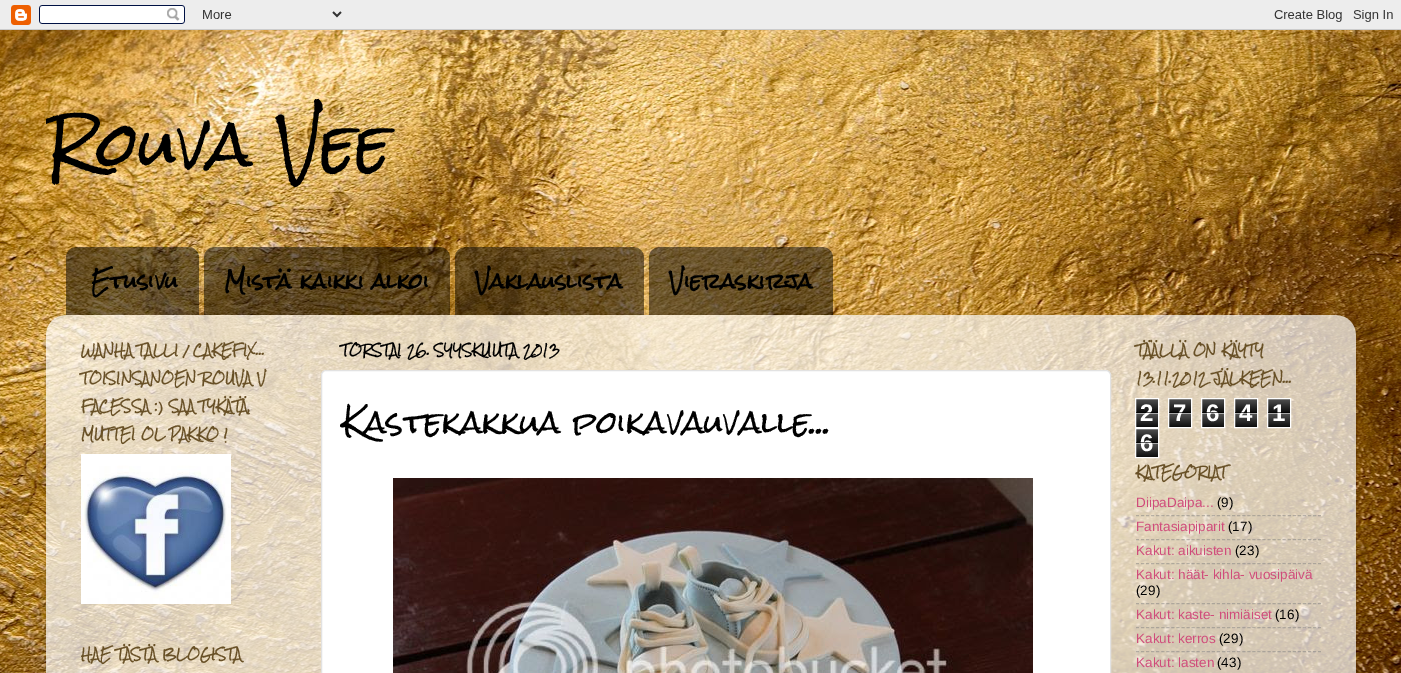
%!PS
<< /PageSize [1401 673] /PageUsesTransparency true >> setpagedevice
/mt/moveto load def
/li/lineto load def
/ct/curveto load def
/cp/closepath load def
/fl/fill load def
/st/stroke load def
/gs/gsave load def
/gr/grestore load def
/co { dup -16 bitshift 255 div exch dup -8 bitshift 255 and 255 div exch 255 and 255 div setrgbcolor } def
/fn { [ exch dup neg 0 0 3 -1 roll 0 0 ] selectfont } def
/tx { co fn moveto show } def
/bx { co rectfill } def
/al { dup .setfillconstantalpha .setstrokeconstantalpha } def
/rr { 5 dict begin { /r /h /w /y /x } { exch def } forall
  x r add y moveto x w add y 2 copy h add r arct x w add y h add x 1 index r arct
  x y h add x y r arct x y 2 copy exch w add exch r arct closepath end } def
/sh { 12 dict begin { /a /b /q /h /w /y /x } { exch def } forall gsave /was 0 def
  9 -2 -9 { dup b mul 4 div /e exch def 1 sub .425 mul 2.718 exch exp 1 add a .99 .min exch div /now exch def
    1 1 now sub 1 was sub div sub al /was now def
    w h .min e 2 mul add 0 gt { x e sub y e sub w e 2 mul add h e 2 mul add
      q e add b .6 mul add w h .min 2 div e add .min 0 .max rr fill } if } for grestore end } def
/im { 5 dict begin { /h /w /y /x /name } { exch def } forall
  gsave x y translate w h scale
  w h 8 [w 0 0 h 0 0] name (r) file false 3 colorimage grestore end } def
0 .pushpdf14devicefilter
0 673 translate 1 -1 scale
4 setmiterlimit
0 0 1401 673 16#FFFFFF bx
(media/1.raw) 0 30 1401 643 im
(media/2.raw) 0 0 1401 30 im
(media/3.raw) 66 247 133 68 im
(media/4.raw) 204 247 246 68 im
(media/5.raw) 455 247 189 68 im
(media/6.raw) 649 247 184 68 im
gs
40 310 mt 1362 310 li 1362 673 li 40 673 li cp 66 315 mt 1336 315 li 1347 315 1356 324 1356 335 ct 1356 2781 li 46 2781 li 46 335 li 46 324 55 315 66 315 ct cp eoclip newpath
16#000000 co
46 316 1310 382 20 1.5 .15 sh
gr
(media/7.raw) 46 315 1310 358 im
(media/8.raw) 81 454 150 150 im
321.5 370.5 789 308 4.5 rr gs fl gr
16#E2E2E2 co
st
(media/9.raw) 393 478 640 195 im
(media/10.raw) 1136 399 22 28 im
16#FFFFFF co
1135.5 398.5 23 29 rectstroke
(media/10.raw) 1169 399 22 28 im
1168.5 398.5 23 29 rectstroke
(media/10.raw) 1202 399 22 28 im
1201.5 398.5 23 29 rectstroke
(media/10.raw) 1235 399 22 28 im
1234.5 398.5 23 29 rectstroke
(media/10.raw) 1268 399 22 28 im
1267.5 398.5 23 29 rectstroke
(media/10.raw) 1136 429 22 28 im
1135.5 428.5 23 29 rectstroke
0.5 al
16#808080 co
[3 2.06] 0 setdash
1136 515.5 mt 1321 515.5 li st
1136 539.5 mt 1321 539.5 li st
1136 563.5 mt 1321 563.5 li st
1136 603.5 mt 1321 603.5 li st
1136 627.5 mt 1321 627.5 li st
1136 651.5 mt 1321 651.5 li st
gs
46 50 1310 190 rectclip
1 al
(Rouva Vee) 46 168 /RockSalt-Regular 60 16#000000 tx
gr
1 al
(Etusivu) 91 289 /RockSalt-Bold 20 16#000000 tx
(Mistä kaikki alkoi) 224 289 /RockSalt-Bold 20 16#000000 tx
(Vaklauslista) 475 289 /RockSalt-Bold 20 16#000000 tx
(Vieraskirja) 669 289 /RockSalt-Bold 20 16#000000 tx
(WANHA TALLI / CAKEFIX...) 81 355 /RockSalt-Bold 12 16#685026 tx
(TOISINSANOEN ROUVA V) 81 383 /RockSalt-Bold 12 16#685026 tx
(FACESSA :\) SAA TYKÄTÄ,) 81 411 /RockSalt-Bold 12 16#685026 tx
(MUTTEI OL PAKKO !) 81 439 /RockSalt-Bold 12 16#685026 tx
(HAE TÄSTÄ BLOGISTA) 81 659 /RockSalt-Bold 12 16#685026 tx
(TORSTAI 26. SYYSKUUTA 2013) 341 355 /RockSalt-Bold 12 16#000000 tx
(Kastekakkua poikavauvalle...) 342 434 /RockSalt-Regular 30 16#000000 tx
(TÄÄLLÄ ON KÄYTY) 1136 355 /RockSalt-Bold 12 16#685026 tx
(13.11.2012 JÄLKEEN...) 1136 383 /RockSalt-Bold 12 16#685026 tx
(2) 1140 421 /LiberationSans-Bold 24 16#FFFFFF tx
0.65 al
1136 412 22 1 16#000000 bx
1136 413 22 1 16#FFFFFF bx
1 al
(7) 1173 421 /LiberationSans-Bold 24 16#FFFFFF tx
0.65 al
1169 412 22 1 16#000000 bx
1169 413 22 1 16#FFFFFF bx
1 al
(6) 1206 421 /LiberationSans-Bold 24 16#FFFFFF tx
0.65 al
1202 412 22 1 16#000000 bx
1202 413 22 1 16#FFFFFF bx
1 al
(4) 1239 421 /LiberationSans-Bold 24 16#FFFFFF tx
0.65 al
1235 412 22 1 16#000000 bx
1235 413 22 1 16#FFFFFF bx
1 al
(1) 1272 421 /LiberationSans-Bold 24 16#FFFFFF tx
0.65 al
1268 412 22 1 16#000000 bx
1268 413 22 1 16#FFFFFF bx
1 al
(6) 1140 451 /LiberationSans-Bold 24 16#FFFFFF tx
0.65 al
1136 442 22 1 16#000000 bx
1136 443 22 1 16#FFFFFF bx
1 al
(KATEGORIAT) 1136 477 /RockSalt-Bold 12 16#685026 tx
(DiipaDaipa...) 1136 507 /LiberationSans-Regular 13.5 16#D04C7B tx
(\(9\)) 1217 507 /LiberationSans-Regular 13.5 16#000000 tx
(Fantasiapiparit) 1136 531 /LiberationSans-Regular 13.5 16#D04C7B tx
(\(17\)) 1228 531 /LiberationSans-Regular 13.5 16#000000 tx
(Kakut: aikuisten) 1136 555 /LiberationSans-Regular 13.5 16#D04C7B tx
(\(23\)) 1235 555 /LiberationSans-Regular 13.5 16#000000 tx
(Kakut: häät- kihla- vuosipäivä) 1136 579 /LiberationSans-Regular 13.5 16#D04C7B tx
(\(29\)) 1136 595 /LiberationSans-Regular 13.5 16#000000 tx
(Kakut: kaste- nimiäiset) 1136 619 /LiberationSans-Regular 13.5 16#D04C7B tx
(\(16\)) 1275 619 /LiberationSans-Regular 13.5 16#000000 tx
(Kakut: kerros) 1136 643 /LiberationSans-Regular 13.5 16#D04C7B tx
(\(29\)) 1219 643 /LiberationSans-Regular 13.5 16#000000 tx
(Kakut: lasten) 1136 667 /LiberationSans-Regular 13.5 16#D04C7B tx
(\(43\)) 1217 667 /LiberationSans-Regular 13.5 16#000000 tx
.poppdf14devicefilter showpage
